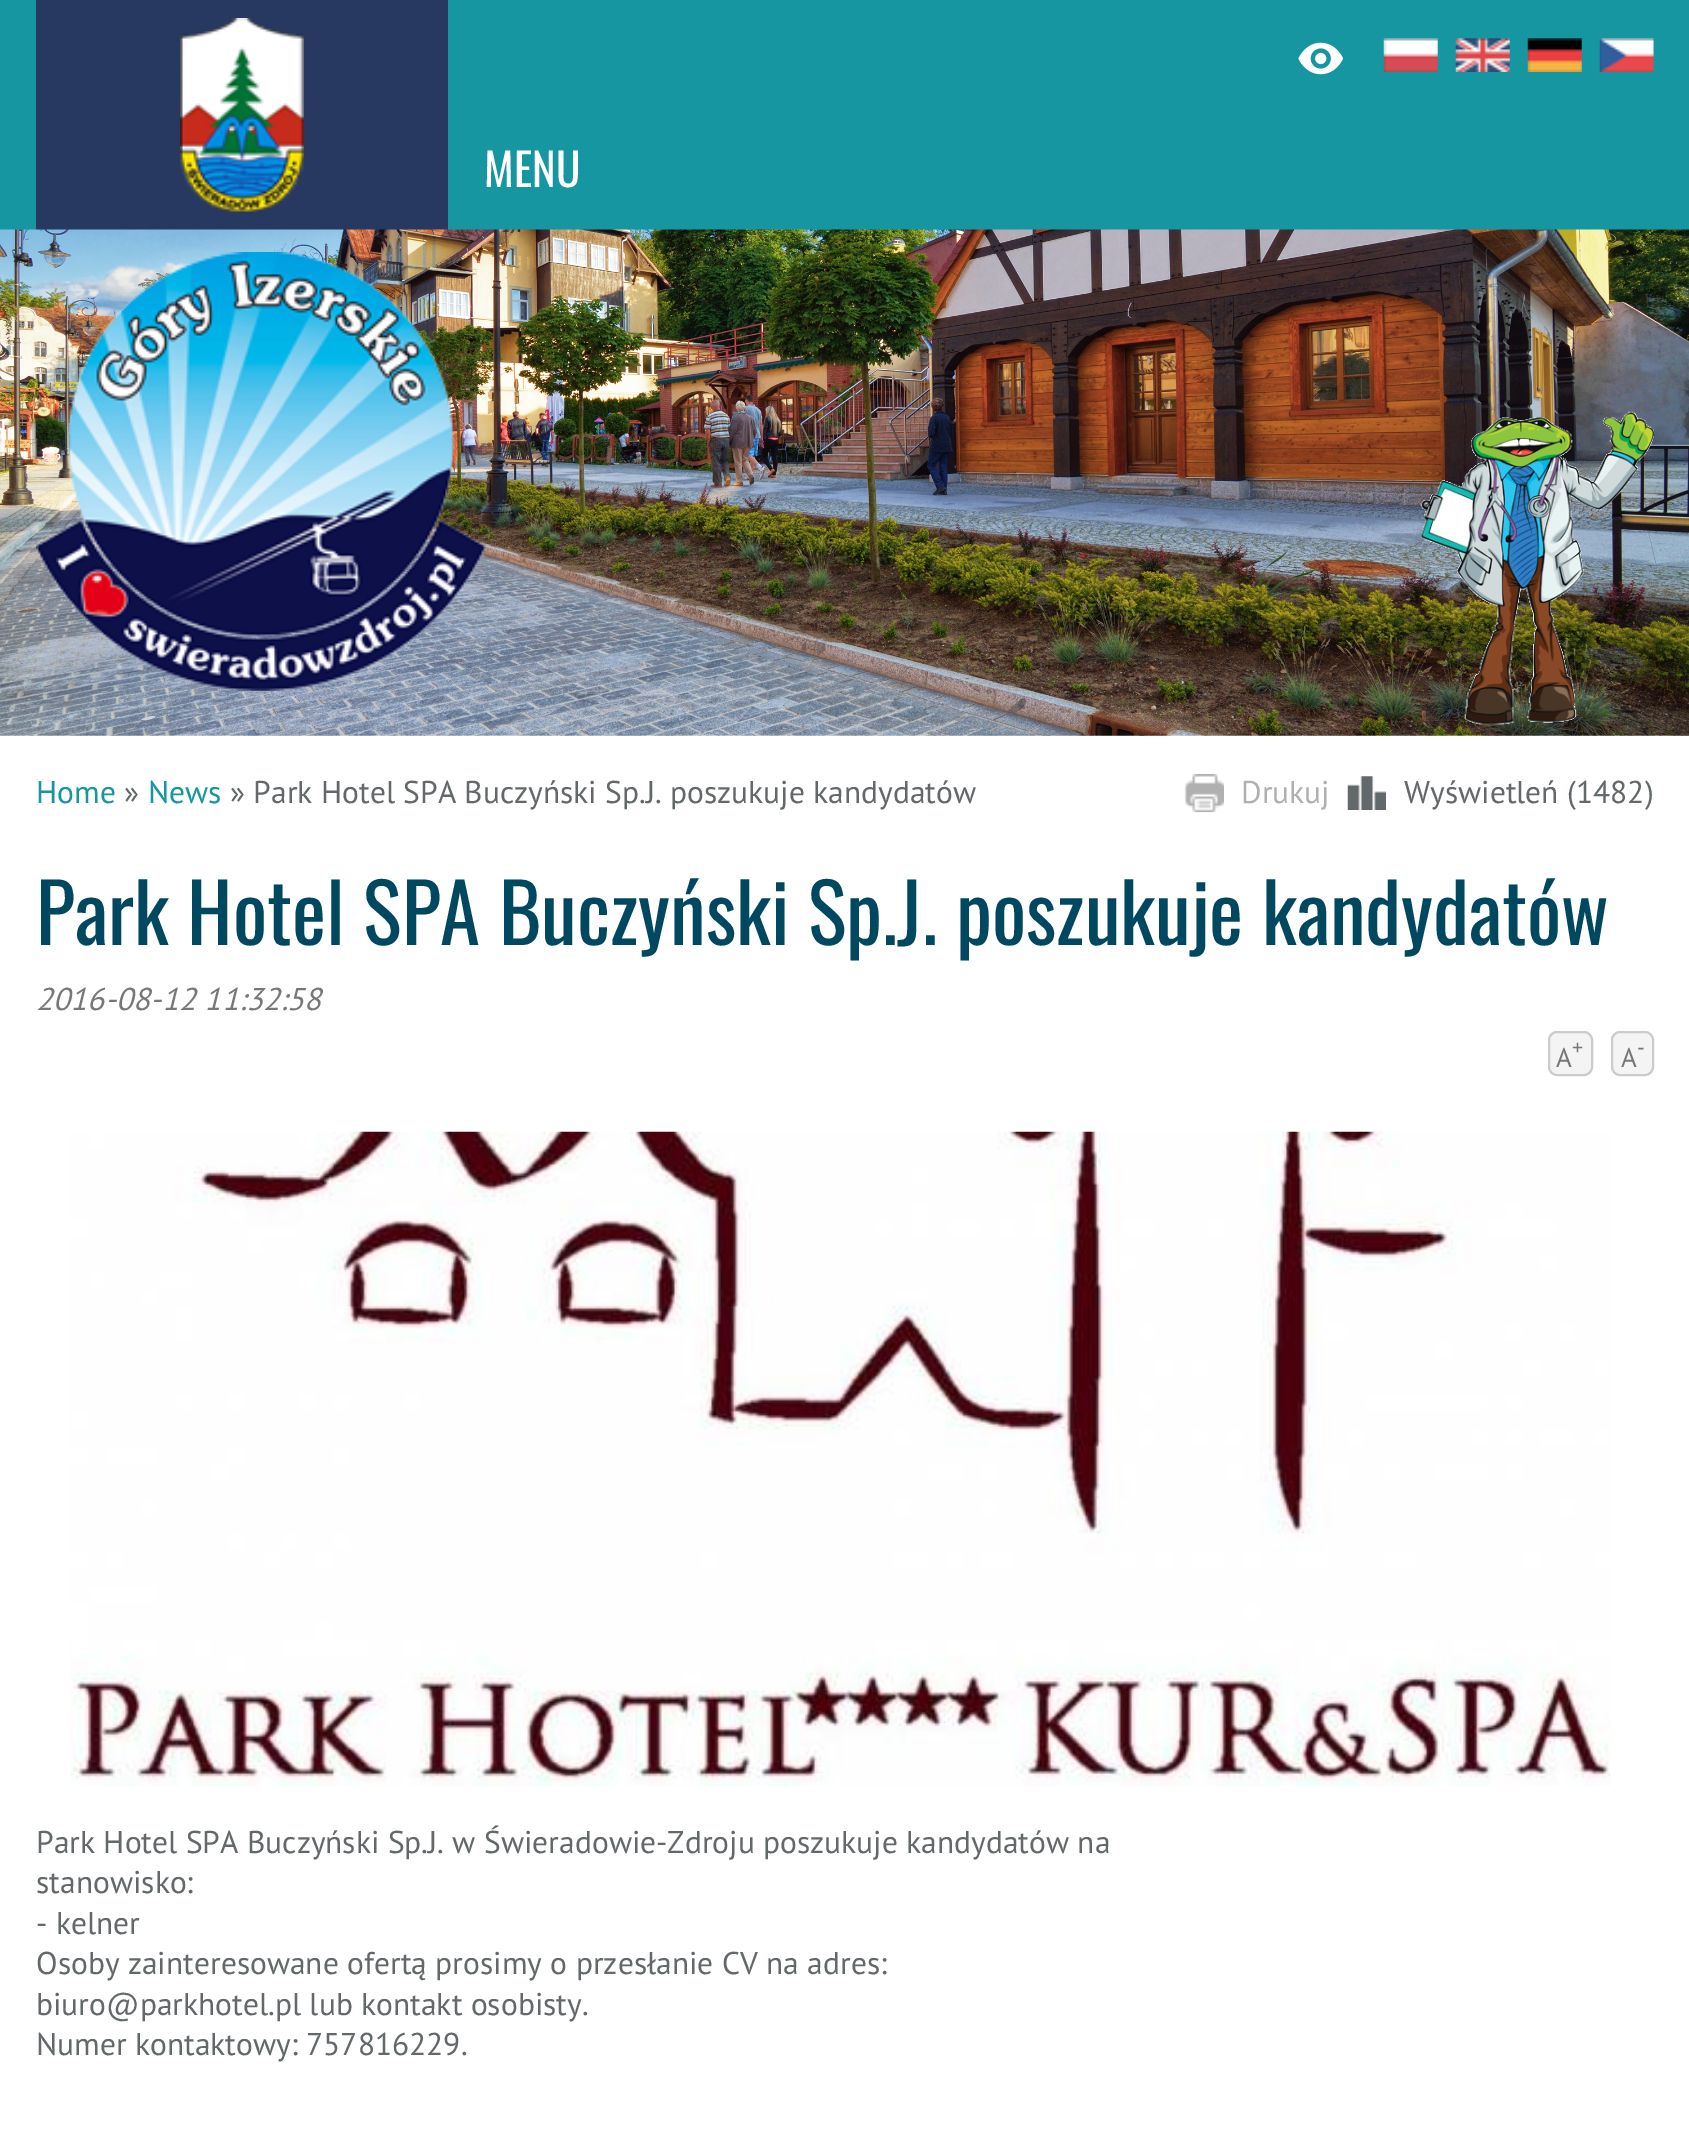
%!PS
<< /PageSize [1689 2138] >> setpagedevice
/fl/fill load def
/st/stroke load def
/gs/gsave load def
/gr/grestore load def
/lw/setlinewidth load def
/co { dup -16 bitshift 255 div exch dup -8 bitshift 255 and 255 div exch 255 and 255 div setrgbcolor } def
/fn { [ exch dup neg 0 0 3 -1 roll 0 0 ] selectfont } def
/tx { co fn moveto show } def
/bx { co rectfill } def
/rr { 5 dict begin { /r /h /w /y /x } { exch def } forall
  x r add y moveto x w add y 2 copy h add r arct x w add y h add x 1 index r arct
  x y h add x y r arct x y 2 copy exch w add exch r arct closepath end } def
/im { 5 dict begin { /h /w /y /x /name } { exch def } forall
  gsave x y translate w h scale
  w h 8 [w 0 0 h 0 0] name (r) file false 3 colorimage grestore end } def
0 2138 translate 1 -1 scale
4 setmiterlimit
0 0 1689 2138 16#FFFFFF bx
0 0 1689 230 16#1696A1 bx
36 0 412 230 16#273961 bx
(media/1.raw) 180 18 124 194 im
(media/2.raw) 1298 42 45 33 im
(media/3.raw) 1383 38 55 34 im
(media/4.raw) 1455 38 55 34 im
(media/5.raw) 1527 38 55 34 im
(media/6.raw) 1599 38 55 34 im
(media/7.raw) 0 229 1689 507 im
(media/8.raw) 36 252 450 439 im
(media/9.raw) 1420 411 234 314 im
(media/10.raw) 1184 774 40 39 im
(media/11.raw) 1347 776 39 34 im
16#F4F4F4 co
1549 1032 43 43 8 rr gs fl gr
16#CCCCCC co
2 lw
st
16#F4F4F4 co
1612 1032 41 43 8 rr gs fl gr
16#CCCCCC co
st
(media/12.raw) 70 1131 1541 656 im
(MENU) 484 187 /Oswald-Regular 45 16#FFFFFF tx
(Home) 36 803 /PTSans-Regular 31.5 16#1596A1 tx
(») 124 803 /PTSans-Regular 31.5 16#63686A tx
(News) 148 803 /PTSans-Regular 31.5 16#1596A1 tx
(» Park Hotel SPA Buczyński Sp.J. poszukuje kandydatów) 230 803 /PTSans-Regular 31.5 16#63686A tx
(Drukuj) 1241 803 /PTSans-Regular 31.5 16#B0B0B0 tx
(Wyświetleń \(1482\)) 1404 803 /PTSans-Regular 31.5 16#63686A tx
(Park Hotel SPA Buczyński Sp.J. poszukuje kandydatów) 36 945 /Oswald-Regular 81 16#00485F tx
(2016-08-12 11:32:58) 36 1010 /PTSans-Italic 31.5 16#777777 tx
(A) 1556 1067 /PTSans-Regular 27 16#777777 tx
(+) 1572 1055 /PTSans-Regular 22 16#777777 tx
(A) 1621 1067 /PTSans-Regular 27 16#777777 tx
(-) 1637 1055 /PTSans-Regular 22 16#777777 tx
(Park Hotel SPA Buczyński Sp.J. w Świeradowie-Zdroju poszukuje kandydatów na) 36 1853 /PTSans-Regular 31.5 16#63686A tx
(stanowisko:) 36 1893 /PTSans-Regular 31.5 16#63686A tx
(- kelner) 36 1934 /PTSans-Regular 31.5 16#63686A tx
(Osoby zainteresowane ofertą prosimy o przesłanie CV na adres:) 36 1974 /PTSans-Regular 31.5 16#63686A tx
(biuro@parkhotel.pl lub kontakt osobisty.) 36 2015 /PTSans-Regular 31.5 16#63686A tx
(Numer kontaktowy: 757816229.) 36 2055 /PTSans-Regular 31.5 16#63686A tx
showpage
